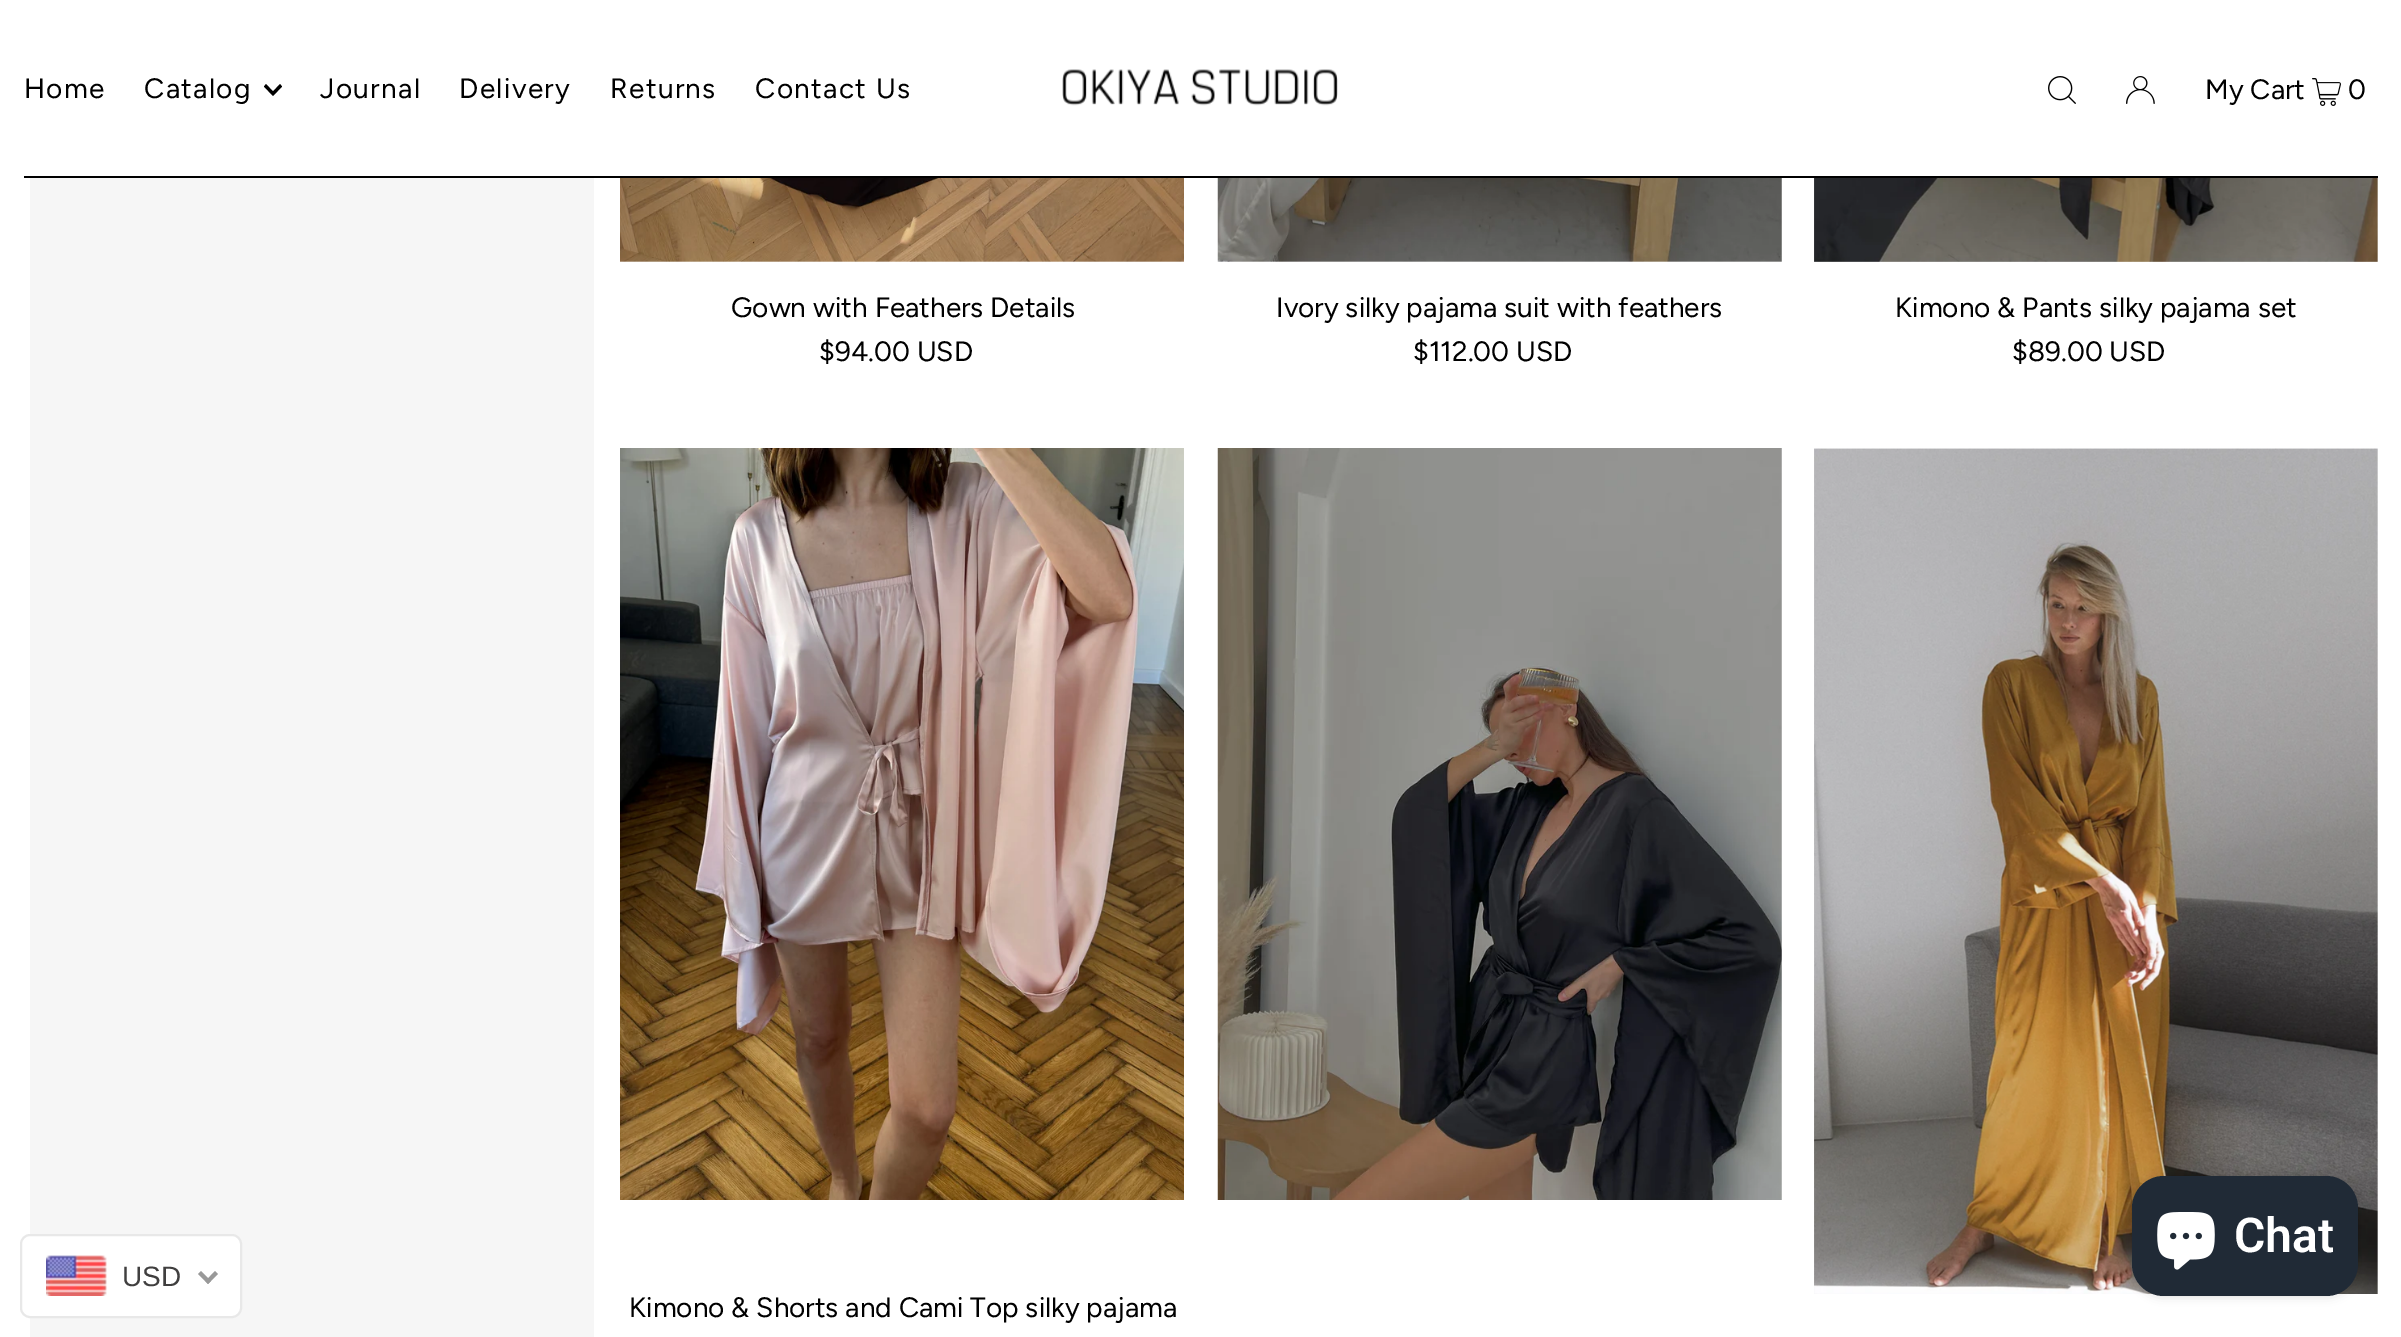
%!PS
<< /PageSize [2401 1337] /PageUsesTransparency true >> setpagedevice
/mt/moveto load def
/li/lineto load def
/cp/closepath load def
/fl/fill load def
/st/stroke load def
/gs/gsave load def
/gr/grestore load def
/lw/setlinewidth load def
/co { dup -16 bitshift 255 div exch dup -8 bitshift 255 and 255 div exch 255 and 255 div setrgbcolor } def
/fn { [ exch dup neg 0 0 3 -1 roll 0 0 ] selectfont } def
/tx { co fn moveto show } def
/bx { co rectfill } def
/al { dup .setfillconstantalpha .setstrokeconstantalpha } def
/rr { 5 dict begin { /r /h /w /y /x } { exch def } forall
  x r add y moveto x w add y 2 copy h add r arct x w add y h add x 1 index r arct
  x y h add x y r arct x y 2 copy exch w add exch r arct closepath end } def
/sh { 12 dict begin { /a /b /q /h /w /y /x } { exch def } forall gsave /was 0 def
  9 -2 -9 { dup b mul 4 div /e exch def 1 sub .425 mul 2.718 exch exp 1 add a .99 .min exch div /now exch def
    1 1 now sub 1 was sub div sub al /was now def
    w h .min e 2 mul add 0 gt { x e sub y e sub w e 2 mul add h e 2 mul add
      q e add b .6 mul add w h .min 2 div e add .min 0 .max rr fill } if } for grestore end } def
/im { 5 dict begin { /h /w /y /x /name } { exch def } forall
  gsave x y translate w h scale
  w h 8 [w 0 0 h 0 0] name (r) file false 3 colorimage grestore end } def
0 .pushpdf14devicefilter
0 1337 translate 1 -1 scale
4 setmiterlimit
0 0 2401 1337 16#FFFFFF bx
24 176 2354 2 16#000000 bx
280 84 mt 273 91.5 li 266 84 li 264 86.5 li 273 96 li 282 86.5 li cp fl
(media/1.raw) 1062 69 276 37 im
(media/2.raw) 2048 76 28 28 im
(media/3.raw) 2126 76 29 28 im
(media/4.raw) 2312 78 29 28 im
30 178 564 1159 16#F6F6F6 bx
(media/5.raw) 620 178 564 84 im
(media/6.raw) 1217 178 565 84 im
(media/7.raw) 1814 178 564 84 im
(media/8.raw) 1217 448 565 752 im
(media/9.raw) 1814 448 564 846 im
(media/10.raw) 620 448 564 752 im
16#000000 co
2132 1176 226 120 32 5 .15 sh
16#202A36 co
2132 1176 226 120 32 rr fl
(media/11.raw) 2157 1212 58 58 im
16#FFFFFF co
21 1235 220 82 9 rr gs fl gr
16#E8E8E8 co
2 lw
st
(media/12.raw) 46 1255 61 41 im
16#999999 co
215 1271 mt 218 1274 li 208 1284 li 205.5 1281 li cp fl
201 1271 mt 211 1281 li 208 1284 li 198 1274 li cp fl
/Figtree-Regular 28 fn
16#000000 co
24 98 mt 1.4 0 (Home) ashow
144 98 mt 1.4 0 (Catalog) ashow
320 98 mt 1.4 0 (Journal) ashow
459 98 mt 1.4 0 (Delivery) ashow
610 98 mt 1.4 0 (Returns) ashow
755 98 mt 1.4 0 (Contact Us) ashow
(My Cart) 2205 99 /Figtree-Regular 28 16#000000 tx
(0) 2348 99 /Figtree-Regular 28 16#000000 tx
(Gown with Feathers Details) 731 317 /Figtree-Regular 28 16#000000 tx
($94.00 USD) 819 361 /Figtree-Regular 28 16#000000 tx
(Ivory silky pajama suit with feathers) 1276 317 /Figtree-Regular 28 16#000000 tx
($112.00 USD) 1413 361 /Figtree-Regular 28 16#000000 tx
(Kimono & Pants silky pajama set) 1895 317 /Figtree-Regular 28 16#000000 tx
($89.00 USD) 2012 361 /Figtree-Regular 28 16#000000 tx
(Kimono & Shorts and Cami Top silky pajama) 629 1317 /Figtree-Regular 28 16#000000 tx
(Chat) 2234 1252 /Roboto-SemiBold 48 16#FFFFFF tx
(USD) 122 1286 /LiberationSans-Regular 28 16#403F3F tx
.poppdf14devicefilter showpage
